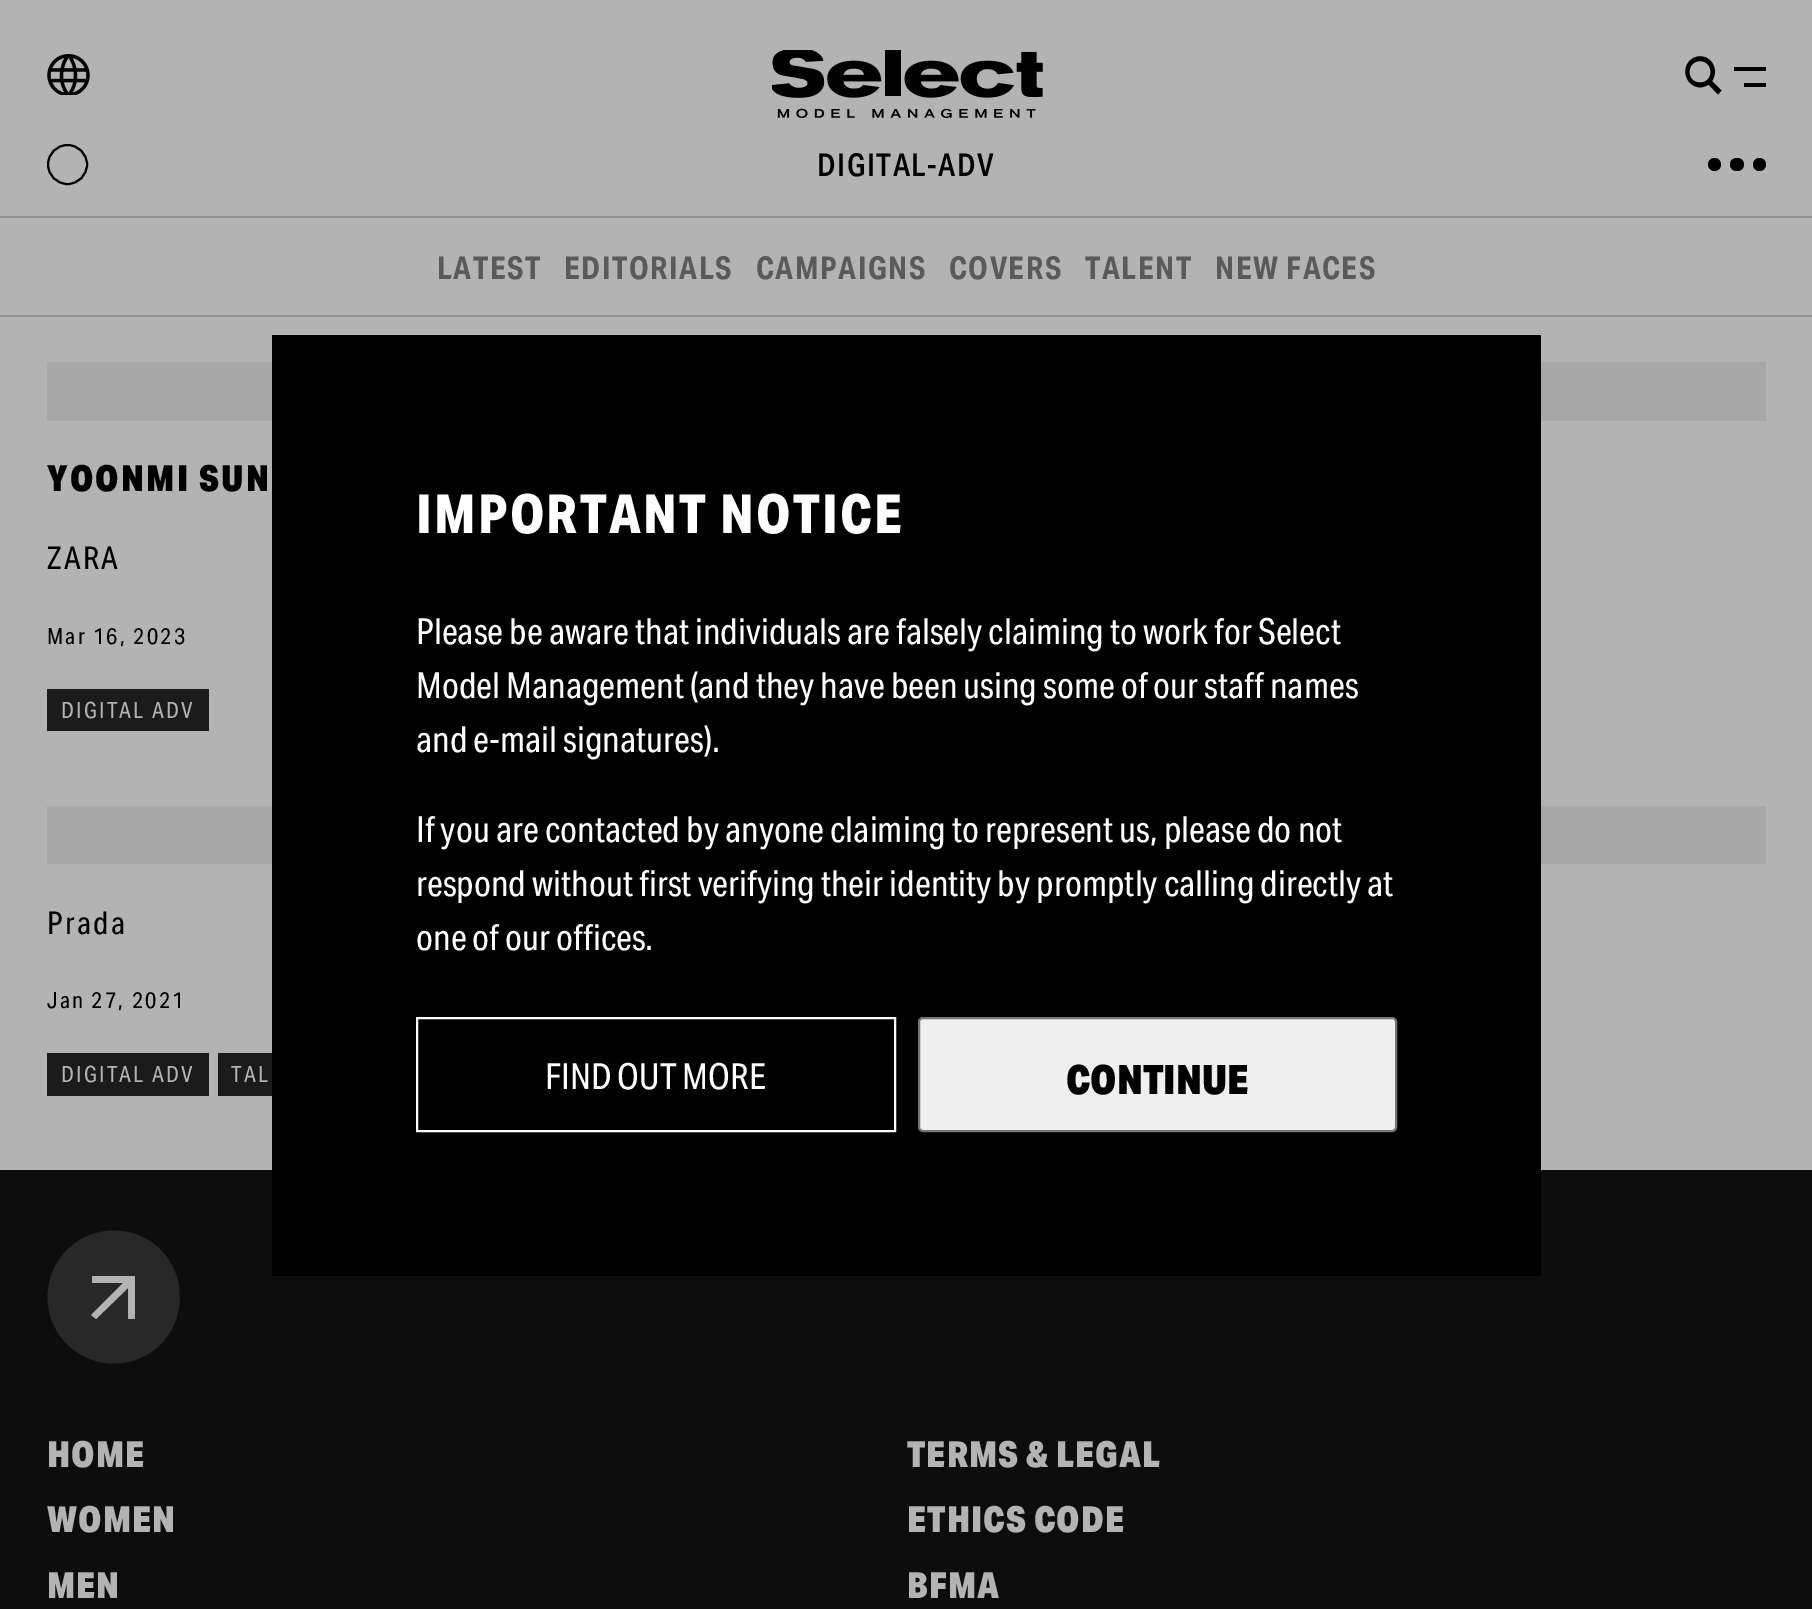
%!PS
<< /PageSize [1812 1609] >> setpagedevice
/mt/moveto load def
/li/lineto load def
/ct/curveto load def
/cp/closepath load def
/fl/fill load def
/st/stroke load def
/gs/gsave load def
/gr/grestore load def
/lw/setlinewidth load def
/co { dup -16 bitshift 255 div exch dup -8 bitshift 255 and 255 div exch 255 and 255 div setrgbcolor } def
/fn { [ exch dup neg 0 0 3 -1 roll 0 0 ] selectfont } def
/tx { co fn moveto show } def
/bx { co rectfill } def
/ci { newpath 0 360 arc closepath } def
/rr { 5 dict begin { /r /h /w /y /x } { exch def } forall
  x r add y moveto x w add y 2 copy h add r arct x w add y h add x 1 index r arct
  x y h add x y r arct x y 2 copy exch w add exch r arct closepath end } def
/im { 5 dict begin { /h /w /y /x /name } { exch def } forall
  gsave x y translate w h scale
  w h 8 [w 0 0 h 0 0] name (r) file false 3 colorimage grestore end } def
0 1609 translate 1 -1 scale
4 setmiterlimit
0 0 1812 1609 16#B3B3B3 bx
16#000000 co
2 lw
67.5 164.5 19.5 ci st
1714.5 164.5 6.5 ci fl
1730 158 14 13 6.5 rr fl
1759.5 164.5 6.5 ci fl
0 216 1812 2 16#919191 bx
0 315 1812 2 16#919191 bx
47 362 1719 59 16#A7A7A7 bx
47 689 162 42 16#1B1B1B bx
47 806 1719 58 16#A7A7A7 bx
47 1053 162 43 16#1B1B1B bx
218 1053 54 43 16#1B1B1B bx
0 1170 1812 439 16#0D0D0D bx
16#282828 co
161 1250 mt 186 1276 186 1318 161 1344 ct 135 1370 93 1370 67 1344 ct 41 1318 41 1276 67 1250 ct 93 1224 135 1224 161 1250 ct cp fl
16#B3B3B3 co
123 1283 mt 92 1283 li 92 1276 li 135 1276 li 135 1319 li 128 1319 li 128 1288 li 96 1319 li 91 1315 li cp eofill
(media/1.raw) 47 54 43 41 im
(media/2.raw) 772 50 271 68 im
1734 67 32 4 16#000000 bx
1744 83 22 4 16#000000 bx
1721.5 90.5 mt 1712 81 li 1717 74 1715.5 64 1708.5 59 ct 1704.5 56 1699 55.5 1694.5 57.5 ct 1690.5 59 1688 62 1686.5 65.5 ct 1681 79.5 1696 93.5 1708.5 84.5 ct 1718 94.5 li cp 1689.5 72 mt 1689.5 57.5 1710.5 57.5 1710.5 72 ct 1710.5 86 1689.5 86 1689.5 72 ct cp fl
272 335 1269 941 16#000000 bx
16#FFFFFF co
417 1018 478 113 rectstroke
16#EFEFEF co
919 1018 477 113 4 rr gs fl gr
16#767676 co
st
/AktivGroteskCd-Medium 31.5 fn
16#000000 co
817 176 mt 1.5 0 (DIGITAL-ADV) ashow
/AktivGroteskCd-Bold 31.5 fn
16#5A5A5A co
437 279 mt 1.5 0 (LATEST) ashow
564 279 mt 1.5 0 (EDITORIALS) ashow
756 279 mt 1.5 0 (CAMPAIGNS) ashow
949 279 mt 1.5 0 (COVERS) ashow
1085 279 mt 1.5 0 (TALENT) ashow
1215 279 mt 1.5 0 (NEW FACES) ashow
/AktivGroteskCd-Black 36 fn
16#000000 co
47 491 mt 2.25 0 (YOONMI SUN) ashow
/AktivGroteskCd-Regular 31.5 fn
47 569 mt 2.25 0 (ZARA) ashow
/AktivGroteskCd-Regular 22.5 fn
47 644 mt 2.25 0 (Mar 16, 2023) ashow
16#B3B3B3 co
61 718 mt 2.25 0 (DIGITAL ADV) ashow
/AktivGroteskCd-Regular 31.5 fn
16#000000 co
47 934 mt 2.25 0 (Prada) ashow
/AktivGroteskCd-Regular 22.5 fn
47 1008 mt 2.25 0 (Jan 27, 2021) ashow
16#B3B3B3 co
61 1082 mt 2.25 0 (DIGITAL ADV) ashow
231 1082 mt 2.25 0 (TAL) ashow
/AktivGroteskCd-Black 36 fn
47 1467 mt 1 0 (HOME) ashow
47 1532 mt 1 0 (WOMEN) ashow
47 1598 mt 1 0 (MEN) ashow
907 1467 mt 1 0 (TERMS & LEGAL) ashow
907 1532 mt 1 0 (ETHICS CODE) ashow
907 1598 mt 1 0 (BFMA) ashow
/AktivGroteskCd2-Bold 54 fn
16#FFFFFF co
416 533 mt 2.25 0 (IMPORTANT NOTICE) ashow
(Please be aware that individuals are falsely claiming to work for Select) 416 644 /AktivGroteskCd-Regular 36 16#FFFFFF tx
(Model Management \(and they have been using some of our staff names) 416 698 /AktivGroteskCd-Regular 36 16#FFFFFF tx
(and e-mail signatures\).) 416 752 /AktivGroteskCd-Regular 36 16#FFFFFF tx
(If you are contacted by anyone claiming to represent us, please do not) 416 842 /AktivGroteskCd-Regular 36 16#FFFFFF tx
(respond without first verifying their identity by promptly calling directly at) 416 896 /AktivGroteskCd-Regular 36 16#FFFFFF tx
(one of our offices.) 416 950 /AktivGroteskCd-Regular 36 16#FFFFFF tx
(FIND OUT MORE) 545 1089 /AktivGroteskCd-Regular 36 16#FFFFFF tx
(CONTINUE) 1066 1094 /AktivGroteskCd-Black 40.5 16#000000 tx
showpage
